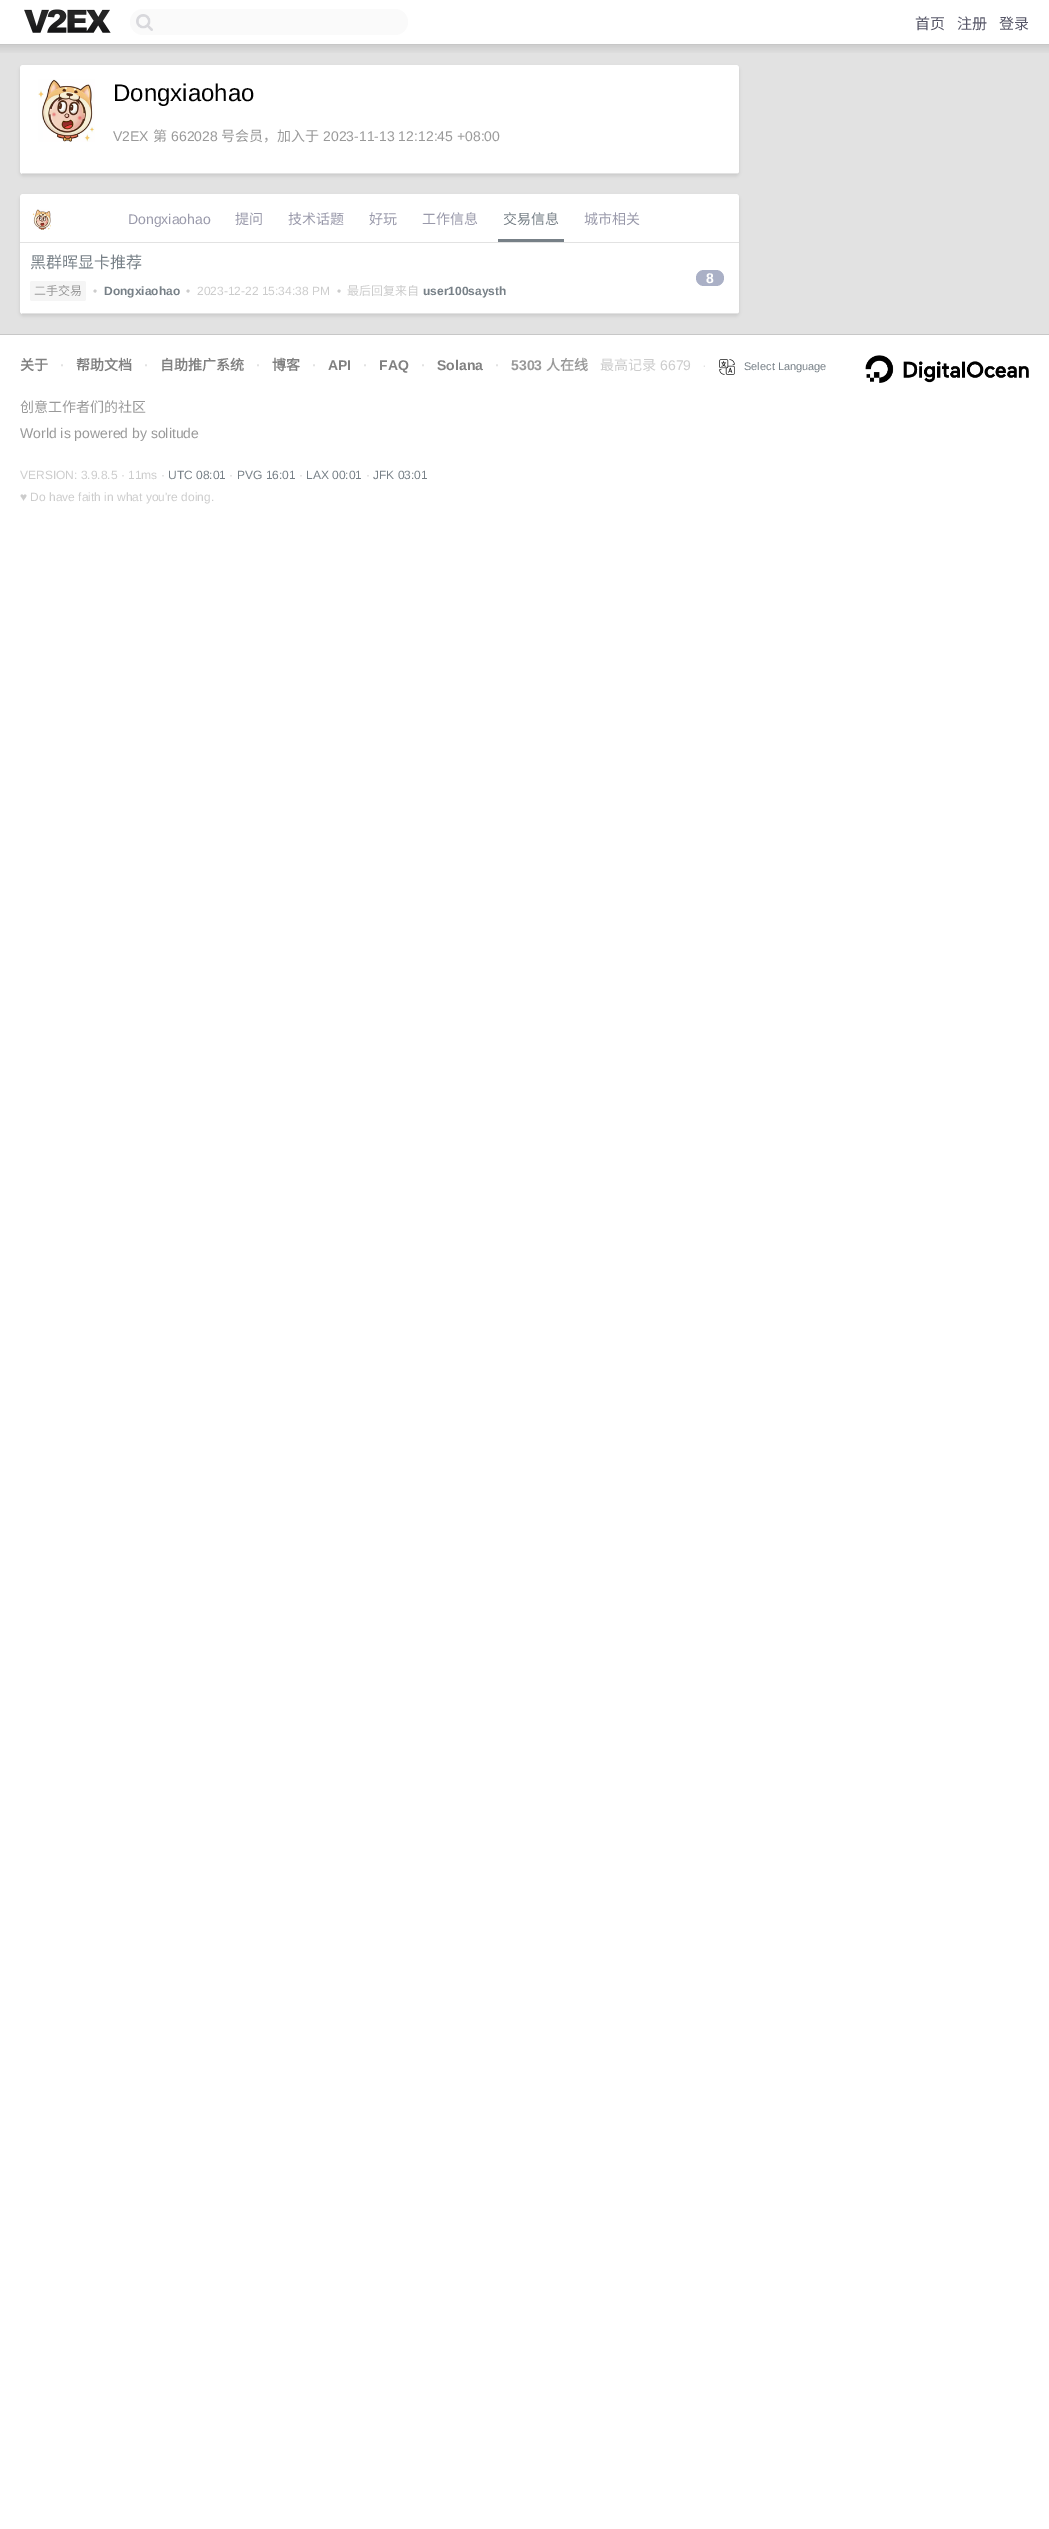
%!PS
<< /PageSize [1049 2529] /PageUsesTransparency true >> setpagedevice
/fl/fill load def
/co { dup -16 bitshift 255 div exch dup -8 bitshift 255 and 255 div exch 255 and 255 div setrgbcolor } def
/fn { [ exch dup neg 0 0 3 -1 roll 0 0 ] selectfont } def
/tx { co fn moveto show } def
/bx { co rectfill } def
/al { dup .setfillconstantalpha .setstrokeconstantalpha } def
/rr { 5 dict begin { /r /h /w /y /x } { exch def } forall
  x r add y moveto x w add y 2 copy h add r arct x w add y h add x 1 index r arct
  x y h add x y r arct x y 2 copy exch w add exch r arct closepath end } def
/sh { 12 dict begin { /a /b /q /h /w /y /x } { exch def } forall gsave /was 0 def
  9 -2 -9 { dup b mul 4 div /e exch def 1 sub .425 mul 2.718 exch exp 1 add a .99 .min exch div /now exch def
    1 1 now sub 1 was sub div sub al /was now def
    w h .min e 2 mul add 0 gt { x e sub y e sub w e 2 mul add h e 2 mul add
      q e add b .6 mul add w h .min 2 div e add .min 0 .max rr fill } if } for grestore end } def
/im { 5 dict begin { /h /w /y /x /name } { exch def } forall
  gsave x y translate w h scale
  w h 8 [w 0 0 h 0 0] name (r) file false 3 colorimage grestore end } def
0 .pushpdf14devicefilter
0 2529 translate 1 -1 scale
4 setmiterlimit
0 0 1049 2529 16#FFFFFF bx
0 44 1049 1 16#C7C7C7 bx
(media/1.raw) 24 9 87 24 im
16#FAFAFA co
130 9 278 26 13 rr fl
(media/2.raw) 136 14 17 17 im
0 45 1049 289 16#E2E2E2 bx
(media/3.raw) 0 45 1049 8 im
16#000000 co
20 67 719 109 3 1.5 .1 sh
16#FFFFFF co
20 65 719 109 3 rr fl
22 173 716 1 16#E2E2E2 bx
(media/4.raw) 38 79 57 63 im
16#000000 co
20 196 719 120 3 1.5 .1 sh
16#FFFFFF co
20 194 719 120 3 rr fl
22 313 716 1 16#E2E2E2 bx
20 242 719 1 16#E2E2E2 bx
(media/5.raw) 32 209 19 21 im
498 239 66 3 16#778087 bx
16#F5F5F5 co
30 281 56 20 2 rr fl
16#AAB0C6 co
696 270 28 16 8 rr fl
0 334 1049 1 16#C7C7C7 bx
(media/6.raw) 719 359 16 16 im
(media/7.raw) 865 355 164 28 im
(首页) 915 29 /NotoSansCJKSC-Regular 15 16#555566 tx
(注册) 957 29 /NotoSansCJKSC-Regular 15 16#555566 tx
(登录) 999 29 /NotoSansCJKSC-Regular 15 16#555566 tx
(Dongxiaohao) 113 101 /LiberationSans-Regular 24 16#000000 tx
(V2EX) 113 141 /LiberationSans-Regular 14 16#999999 tx
(第) 153 141 /NotoSansCJKSC-Regular 14 16#999999 tx
(662028) 171 141 /LiberationSans-Regular 14 16#999999 tx
(号会员，加入于) 221 141 /NotoSansCJKSC-Regular 14 16#999999 tx
(2023-11-13 12:12:45 +08:00) 323 141 /LiberationSans-Regular 14 16#999999 tx
(Dongxiaohao) 128 224 /LiberationSans-Regular 14 16#9999AA tx
(提问) 235 224 /NotoSansCJKSC-Regular 14 16#9999AA tx
(技术话题) 288 224 /NotoSansCJKSC-Regular 14 16#9999AA tx
(好玩) 369 224 /NotoSansCJKSC-Regular 14 16#9999AA tx
(工作信息) 422 224 /NotoSansCJKSC-Regular 14 16#9999AA tx
(交易信息) 503 224 /NotoSansCJKSC-Regular 14 16#778087 tx
(城市相关) 584 224 /NotoSansCJKSC-Regular 14 16#9999AA tx
(黑群晖显卡推荐) 30 268 /NotoSansCJKSC-Regular 16 16#778087 tx
(二手交易) 34 295 /NotoSansCJKSC-Regular 12 16#999999 tx
(•) 93 295 /LiberationSans-Regular 12 16#CCCCCC tx
(Dongxiaohao) 104 295 /LiberationSans-Bold 12 16#778087 tx
(•) 186 295 /LiberationSans-Regular 12 16#CCCCCC tx
(2023-12-22 15:34:38 PM) 197 295 /LiberationSans-Regular 12 16#CCCCCC tx
(•) 337 295 /LiberationSans-Regular 12 16#CCCCCC tx
(最后回复来自) 347 295 /NotoSansCJKSC-Regular 12 16#CCCCCC tx
(user100saysth) 423 295 /LiberationSans-Bold 12 16#778087 tx
(8) 706 283 /LiberationSans-Bold 14 16#FFFFFF tx
(关于) 20 370 /NotoSansCJKSC-Bold 14 16#808080 tx
(·) 60 370 /LiberationSans-Bold 14 16#E2E2E2 tx
(帮助文档) 76 370 /NotoSansCJKSC-Bold 14 16#808080 tx
(·) 144 370 /LiberationSans-Bold 14 16#E2E2E2 tx
(自助推广系统) 160 370 /NotoSansCJKSC-Bold 14 16#808080 tx
(·) 256 370 /LiberationSans-Bold 14 16#E2E2E2 tx
(博客) 272 370 /NotoSansCJKSC-Bold 14 16#808080 tx
(·) 312 370 /LiberationSans-Bold 14 16#E2E2E2 tx
(API) 328 370 /LiberationSans-Bold 14 16#808080 tx
(·) 363 370 /LiberationSans-Bold 14 16#E2E2E2 tx
(FAQ) 379 370 /LiberationSans-Bold 14 16#808080 tx
(·) 421 370 /LiberationSans-Bold 14 16#E2E2E2 tx
(Solana) 437 370 /LiberationSans-Bold 14 16#808080 tx
(·) 495 370 /LiberationSans-Bold 14 16#E2E2E2 tx
(5303) 511 370 /LiberationSans-Bold 14 16#999999 tx
(人在线) 546 370 /NotoSansCJKSC-Bold 14 16#999999 tx
(最高记录) 600 370 /NotoSansCJKSC-Regular 14 16#CCCCCC tx
(6679) 660 370 /LiberationSans-Regular 14 16#CCCCCC tx
(·) 702 370 /LiberationSans-Regular 14 16#E2E2E2 tx
(Select Language) 744 370 /LiberationSans-Regular 11 16#778087 tx
(创意工作者们的社区) 20 412 /NotoSansCJKSC-Regular 14 16#999999 tx
(World is powered by solitude) 20 438 /LiberationSans-Regular 14 16#999999 tx
(VERSION: 3.9.8.5 · 11ms ·) 20 479 /LiberationSans-Regular 12 16#CCCCCC tx
(UTC 08:01) 168 479 /LiberationSans-Regular 12 16#778087 tx
(·) 229 479 /LiberationSans-Regular 12 16#CCCCCC tx
(PVG 16:01) 237 479 /LiberationSans-Regular 12 16#778087 tx
(·) 299 479 /LiberationSans-Regular 12 16#CCCCCC tx
(LAX 00:01) 306 479 /LiberationSans-Regular 12 16#778087 tx
(·) 366 479 /LiberationSans-Regular 12 16#CCCCCC tx
(JFK 03:01) 373 479 /LiberationSans-Regular 12 16#778087 tx
(♥ Do have faith in what you're doing.) 20 501 /LiberationSans-Regular 12 16#CCCCCC tx
.poppdf14devicefilter showpage
